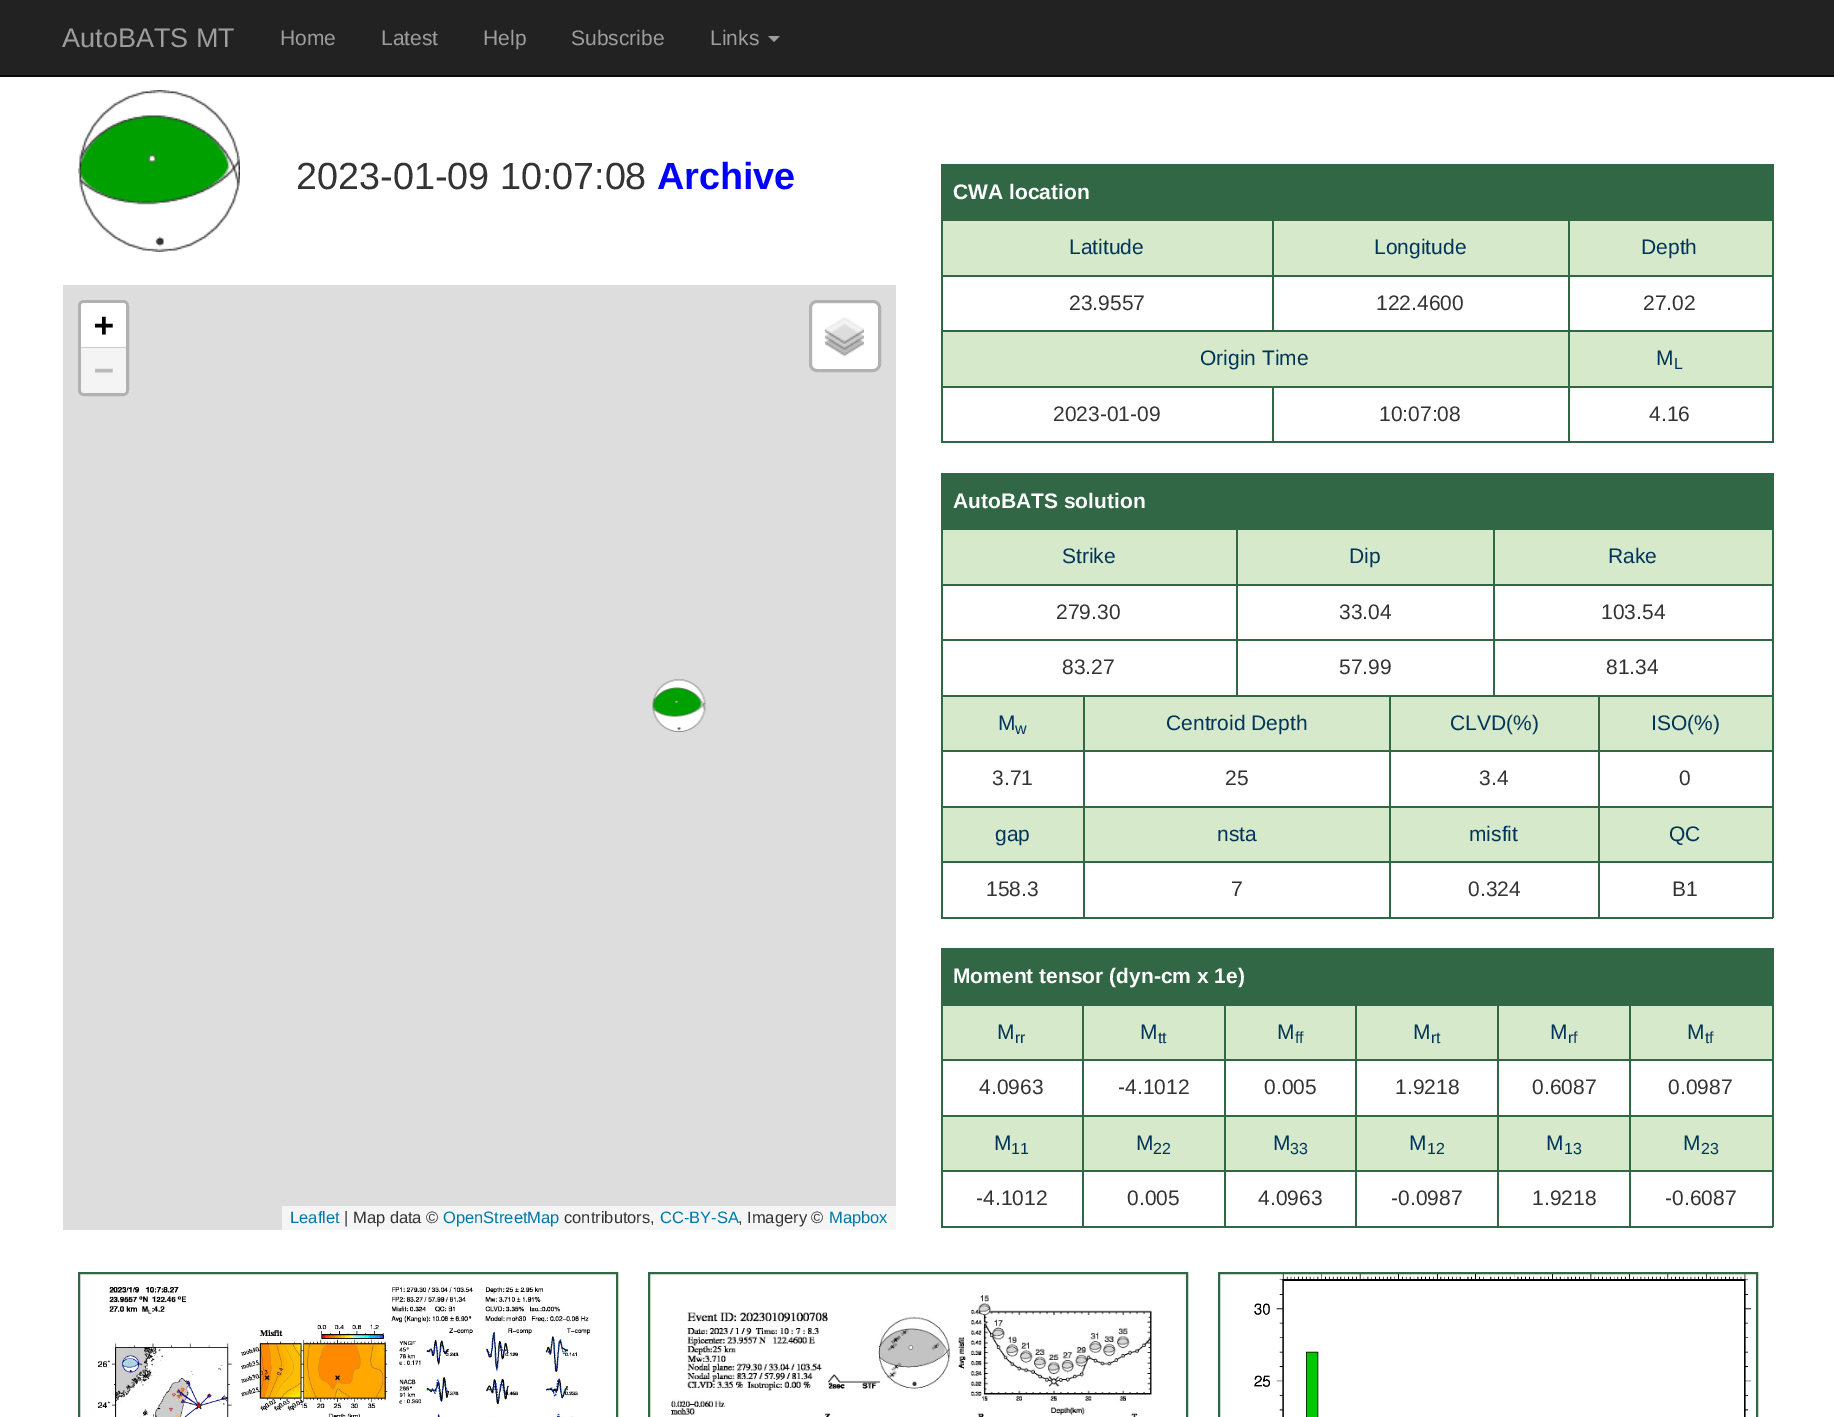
%!PS
<< /PageSize [1834 1417] /PageUsesTransparency true >> setpagedevice
/mt/moveto load def
/li/lineto load def
/ct/curveto load def
/cp/closepath load def
/fl/fill load def
/st/stroke load def
/lw/setlinewidth load def
/co { dup -16 bitshift 255 div exch dup -8 bitshift 255 and 255 div exch 255 and 255 div setrgbcolor } def
/fn { [ exch dup neg 0 0 3 -1 roll 0 0 ] selectfont } def
/tx { co fn moveto show } def
/bx { co rectfill } def
/al { dup .setfillconstantalpha .setstrokeconstantalpha } def
/rr { 5 dict begin { /r /h /w /y /x } { exch def } forall
  x r add y moveto x w add y 2 copy h add r arct x w add y h add x 1 index r arct
  x y h add x y r arct x y 2 copy exch w add exch r arct closepath end } def
/im { 5 dict begin { /h /w /y /x /name } { exch def } forall
  gsave x y translate w h scale
  w h 8 [w 0 0 h 0 0] name (r) file false 3 colorimage grestore end } def
0 .pushpdf14devicefilter
0 1417 translate 1 -1 scale
4 setmiterlimit
0 0 1834 1417 16#FFFFFF bx
0 0 1834 75 16#222222 bx
0 75 1834 2 16#080808 bx
16#9D9D9D co
768 36 mt 780 36 li 774 42 li cp fl
(media/1.raw) 78 90 162 162 im
63 285 833 945 16#DDDDDD bx
16#B1B1B1 co
3 lw
79.5 301.5 48 93 4.5 rr st
16#FFFFFF co
84 303 mt 123 303 li 124.5 303 126 304.5 126 306 ct 126 348 li 81 348 li 81 306 li 81 304.5 82.5 303 84 303 ct cp fl
81 347 45 1 16#CCCCCC bx
16#F4F4F4 co
81 348 mt 126 348 li 126 390 li 126 391.5 124.5 393 123 393 ct 84 393 li 82.5 393 81 391.5 81 390 ct cp fl
16#FFFFFF co
812 303 66 66 5 rr fl
0.2 al
16#000000 co
810.5 301.5 69 69 6.5 rr st
1 al
(media/2.raw) 825 317 39 39 im
282 1206 614 24 16#F5F5F5 bx
(media/3.raw) 652 679 54 53 im
943 166 829 53 16#316745 bx
941 164 832 2 16#316745 bx
1772 164 2 57 16#316745 bx
941 219 832 2 16#316745 bx
941 164 2 57 16#316745 bx
943 221 829 54 16#D6E9CA bx
1568 275 205 2 16#316745 bx
1568 330 205 2 16#316745 bx
943 332 829 54 16#D6E9CA bx
1568 386 205 2 16#316745 bx
1772 386 2 57 16#316745 bx
1568 441 205 2 16#316745 bx
1568 386 2 57 16#316745 bx
1272 386 297 2 16#316745 bx
1568 330 2 57 16#316745 bx
941 330 628 2 16#316745 bx
1568 275 2 57 16#316745 bx
1272 275 297 2 16#316745 bx
1272 275 2 57 16#316745 bx
941 275 333 2 16#316745 bx
1272 219 2 57 16#316745 bx
1568 219 2 57 16#316745 bx
1272 441 297 2 16#316745 bx
1272 386 2 57 16#316745 bx
941 386 333 2 16#316745 bx
941 441 333 2 16#316745 bx
941 386 2 57 16#316745 bx
941 330 2 57 16#316745 bx
941 219 2 113 16#316745 bx
1772 330 2 57 16#316745 bx
1772 219 2 113 16#316745 bx
943 475 829 53 16#316745 bx
941 473 832 2 16#316745 bx
1772 473 2 57 16#316745 bx
941 528 832 2 16#316745 bx
941 473 2 57 16#316745 bx
943 530 829 54 16#D6E9CA bx
1493 584 280 2 16#316745 bx
1493 639 280 2 16#316745 bx
1598 695 175 2 16#316745 bx
943 697 829 53 16#D6E9CA bx
1598 750 175 2 16#316745 bx
1598 806 175 2 16#316745 bx
943 808 829 53 16#D6E9CA bx
1598 861 175 2 16#316745 bx
1772 861 2 57 16#316745 bx
1598 917 175 2 16#316745 bx
1598 861 2 57 16#316745 bx
1389 861 210 2 16#316745 bx
1598 806 2 57 16#316745 bx
1389 806 210 2 16#316745 bx
1598 750 2 57 16#316745 bx
1389 750 210 2 16#316745 bx
1598 695 2 57 16#316745 bx
1389 695 210 2 16#316745 bx
1493 639 2 57 16#316745 bx
1236 639 258 2 16#316745 bx
1493 584 2 57 16#316745 bx
1236 584 258 2 16#316745 bx
1389 917 210 2 16#316745 bx
1389 861 2 57 16#316745 bx
1083 861 308 2 16#316745 bx
1389 806 2 57 16#316745 bx
1083 806 308 2 16#316745 bx
1389 750 2 57 16#316745 bx
1083 750 308 2 16#316745 bx
1389 695 2 57 16#316745 bx
1083 695 308 2 16#316745 bx
1236 639 2 57 16#316745 bx
941 639 297 2 16#316745 bx
1236 584 2 57 16#316745 bx
941 584 297 2 16#316745 bx
1236 528 2 57 16#316745 bx
1493 528 2 57 16#316745 bx
1083 917 308 2 16#316745 bx
1083 861 2 57 16#316745 bx
941 861 144 2 16#316745 bx
1083 806 2 57 16#316745 bx
941 806 144 2 16#316745 bx
1083 750 2 57 16#316745 bx
941 750 144 2 16#316745 bx
1083 695 2 57 16#316745 bx
941 695 144 2 16#316745 bx
941 917 144 2 16#316745 bx
941 861 2 57 16#316745 bx
941 806 2 57 16#316745 bx
941 750 2 57 16#316745 bx
941 695 2 57 16#316745 bx
941 639 2 57 16#316745 bx
941 528 2 113 16#316745 bx
1772 806 2 57 16#316745 bx
1772 750 2 57 16#316745 bx
1772 695 2 57 16#316745 bx
1772 639 2 57 16#316745 bx
1772 528 2 113 16#316745 bx
943 950 829 54 16#316745 bx
941 948 832 2 16#316745 bx
1772 948 2 57 16#316745 bx
941 1004 832 2 16#316745 bx
941 948 2 57 16#316745 bx
943 1006 829 53 16#D6E9CA bx
1629 1059 144 2 16#316745 bx
1629 1115 144 2 16#316745 bx
943 1117 829 53 16#D6E9CA bx
1629 1170 144 2 16#316745 bx
1772 1170 2 57 16#316745 bx
1629 1226 144 2 16#316745 bx
1629 1170 2 57 16#316745 bx
1497 1170 134 2 16#316745 bx
1629 1115 2 57 16#316745 bx
1497 1115 134 2 16#316745 bx
1629 1059 2 57 16#316745 bx
1497 1059 134 2 16#316745 bx
1497 1226 134 2 16#316745 bx
1497 1170 2 57 16#316745 bx
1355 1170 144 2 16#316745 bx
1497 1115 2 57 16#316745 bx
1355 1115 144 2 16#316745 bx
1497 1059 2 57 16#316745 bx
1355 1059 144 2 16#316745 bx
1355 1226 144 2 16#316745 bx
1355 1170 2 57 16#316745 bx
1224 1170 132 2 16#316745 bx
1355 1115 2 57 16#316745 bx
1224 1115 132 2 16#316745 bx
1355 1059 2 57 16#316745 bx
1224 1059 132 2 16#316745 bx
1224 1226 132 2 16#316745 bx
1224 1170 2 57 16#316745 bx
1082 1170 144 2 16#316745 bx
1224 1115 2 57 16#316745 bx
1082 1115 144 2 16#316745 bx
1224 1059 2 57 16#316745 bx
1082 1059 144 2 16#316745 bx
1082 1226 144 2 16#316745 bx
1082 1170 2 57 16#316745 bx
941 1170 142 2 16#316745 bx
1082 1115 2 57 16#316745 bx
941 1115 142 2 16#316745 bx
1082 1059 2 57 16#316745 bx
941 1059 142 2 16#316745 bx
1082 1004 2 57 16#316745 bx
1224 1004 2 57 16#316745 bx
1355 1004 2 57 16#316745 bx
1497 1004 2 57 16#316745 bx
1629 1004 2 57 16#316745 bx
941 1226 142 2 16#316745 bx
941 1170 2 57 16#316745 bx
941 1115 2 57 16#316745 bx
941 1004 2 112 16#316745 bx
1772 1115 2 57 16#316745 bx
1772 1004 2 112 16#316745 bx
(media/4.raw) 98 1287 492 130 im
2 lw
79 1273 538 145 rectstroke
(media/5.raw) 671 1295 481 122 im
649 1273 538 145 rectstroke
(media/6.raw) 1254 1274 498 143 im
1219 1273 538 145 rectstroke
(AutoBATS MT) 62 47 /LiberationSans-Regular 27 16#9D9D9D tx
(Home) 280 45 /LiberationSans-Regular 21 16#9D9D9D tx
(Latest) 381 45 /LiberationSans-Regular 21 16#9D9D9D tx
(Help) 483 45 /LiberationSans-Regular 21 16#9D9D9D tx
(Subscribe) 571 45 /LiberationSans-Regular 21 16#9D9D9D tx
(Links) 710 45 /LiberationSans-Regular 21 16#9D9D9D tx
(2023-01-09 10:07:08) 296 189 /LiberationSans-Regular 37.75 16#333333 tx
(Archive) 657 189 /LiberationSans-Bold 37.75 16#0000FF tx
(+) 94 336 /DejaVuSansMono-Bold 33 16#000000 tx
(−) 94 381 /DejaVuSansMono-Bold 33 16#BBBBBB tx
(Leaflet) 290 1223 /LiberationSans-Regular 16.5 16#0078A8 tx
(| Map data ©) 344 1223 /LiberationSans-Regular 16.5 16#333333 tx
(OpenStreetMap) 443 1223 /LiberationSans-Regular 16.5 16#0078A8 tx
(contributors,) 564 1223 /LiberationSans-Regular 16.5 16#333333 tx
(CC-BY-SA) 660 1223 /LiberationSans-Regular 16.5 16#0078A8 tx
(, Imagery ©) 738 1223 /LiberationSans-Regular 16.5 16#333333 tx
(Mapbox) 829 1223 /LiberationSans-Regular 16.5 16#0078A8 tx
(CWA location) 953 199 /LiberationSans-Bold 21 16#FFFFFF tx
(Latitude) 1069 254 /LiberationSans-Regular 21 16#003459 tx
(Longitude) 1374 254 /LiberationSans-Regular 21 16#003459 tx
(Depth) 1641 254 /LiberationSans-Regular 21 16#003459 tx
(23.9557) 1069 310 /LiberationSans-Regular 21 16#333333 tx
(122.4600) 1376 310 /LiberationSans-Regular 21 16#333333 tx
(27.02) 1643 310 /LiberationSans-Regular 21 16#333333 tx
(Origin Time) 1200 365 /LiberationSans-Regular 21 16#003459 tx
(M) 1656 365 /LiberationSans-Regular 21 16#003459 tx
(L) 1674 369 /LiberationSans-Regular 16 16#003459 tx
(2023-01-09) 1053 421 /LiberationSans-Regular 21 16#333333 tx
(10:07:08) 1379 421 /LiberationSans-Regular 21 16#333333 tx
(4.16) 1649 421 /LiberationSans-Regular 21 16#333333 tx
(AutoBATS solution) 953 508 /LiberationSans-Bold 21 16#FFFFFF tx
(Strike) 1062 563 /LiberationSans-Regular 21 16#003459 tx
(Dip) 1349 563 /LiberationSans-Regular 21 16#003459 tx
(Rake) 1608 563 /LiberationSans-Regular 21 16#003459 tx
(279.30) 1056 619 /LiberationSans-Regular 21 16#333333 tx
(33.04) 1339 619 /LiberationSans-Regular 21 16#333333 tx
(103.54) 1601 619 /LiberationSans-Regular 21 16#333333 tx
(83.27) 1062 674 /LiberationSans-Regular 21 16#333333 tx
(57.99) 1339 674 /LiberationSans-Regular 21 16#333333 tx
(81.34) 1606 674 /LiberationSans-Regular 21 16#333333 tx
(M) 998 730 /LiberationSans-Regular 21 16#003459 tx
(w) 1015 734 /LiberationSans-Regular 16 16#003459 tx
(Centroid Depth) 1166 730 /LiberationSans-Regular 21 16#003459 tx
(CLVD\(%\)) 1450 730 /LiberationSans-Regular 21 16#003459 tx
(ISO\(%\)) 1651 730 /LiberationSans-Regular 21 16#003459 tx
(3.71) 992 785 /LiberationSans-Regular 21 16#333333 tx
(25) 1225 785 /LiberationSans-Regular 21 16#333333 tx
(3.4) 1479 785 /LiberationSans-Regular 21 16#333333 tx
(0) 1679 785 /LiberationSans-Regular 21 16#333333 tx
(gap) 995 841 /LiberationSans-Regular 21 16#003459 tx
(nsta) 1217 841 /LiberationSans-Regular 21 16#003459 tx
(misfit) 1469 841 /LiberationSans-Regular 21 16#003459 tx
(QC) 1669 841 /LiberationSans-Regular 21 16#003459 tx
(158.3) 986 896 /LiberationSans-Regular 21 16#333333 tx
(7) 1231 896 /LiberationSans-Regular 21 16#333333 tx
(0.324) 1468 896 /LiberationSans-Regular 21 16#333333 tx
(B1) 1672 896 /LiberationSans-Regular 21 16#333333 tx
(Moment tensor \(dyn-cm x 1e\)) 953 983 /LiberationSans-Bold 21 16#FFFFFF tx
(M) 997 1039 /LiberationSans-Regular 21 16#003459 tx
(rr) 1015 1043 /LiberationSans-Regular 16 16#003459 tx
(M) 1140 1039 /LiberationSans-Regular 21 16#003459 tx
(tt) 1158 1043 /LiberationSans-Regular 16 16#003459 tx
(M) 1277 1039 /LiberationSans-Regular 21 16#003459 tx
(ff) 1295 1043 /LiberationSans-Regular 16 16#003459 tx
(M) 1413 1039 /LiberationSans-Regular 21 16#003459 tx
(rt) 1431 1043 /LiberationSans-Regular 16 16#003459 tx
(M) 1550 1039 /LiberationSans-Regular 21 16#003459 tx
(rf) 1568 1043 /LiberationSans-Regular 16 16#003459 tx
(M) 1687 1039 /LiberationSans-Regular 21 16#003459 tx
(tf) 1705 1043 /LiberationSans-Regular 16 16#003459 tx
(4.0963) 979 1094 /LiberationSans-Regular 21 16#333333 tx
(-4.1012) 1118 1094 /LiberationSans-Regular 21 16#333333 tx
(0.005) 1264 1094 /LiberationSans-Regular 21 16#333333 tx
(1.9218) 1395 1094 /LiberationSans-Regular 21 16#333333 tx
(0.6087) 1532 1094 /LiberationSans-Regular 21 16#333333 tx
(0.0987) 1668 1094 /LiberationSans-Regular 21 16#333333 tx
(M) 994 1150 /LiberationSans-Regular 21 16#003459 tx
(11) 1011 1154 /LiberationSans-Regular 16 16#003459 tx
(M) 1136 1150 /LiberationSans-Regular 21 16#003459 tx
(22) 1153 1154 /LiberationSans-Regular 16 16#003459 tx
(M) 1273 1150 /LiberationSans-Regular 21 16#003459 tx
(33) 1290 1154 /LiberationSans-Regular 16 16#003459 tx
(M) 1409 1150 /LiberationSans-Regular 21 16#003459 tx
(12) 1427 1154 /LiberationSans-Regular 16 16#003459 tx
(M) 1546 1150 /LiberationSans-Regular 21 16#003459 tx
(13) 1564 1154 /LiberationSans-Regular 16 16#003459 tx
(M) 1683 1150 /LiberationSans-Regular 21 16#003459 tx
(23) 1701 1154 /LiberationSans-Regular 16 16#003459 tx
(-4.1012) 976 1205 /LiberationSans-Regular 21 16#333333 tx
(0.005) 1127 1205 /LiberationSans-Regular 21 16#333333 tx
(4.0963) 1258 1205 /LiberationSans-Regular 21 16#333333 tx
(-0.0987) 1391 1205 /LiberationSans-Regular 21 16#333333 tx
(1.9218) 1532 1205 /LiberationSans-Regular 21 16#333333 tx
(-0.6087) 1665 1205 /LiberationSans-Regular 21 16#333333 tx
.poppdf14devicefilter showpage
